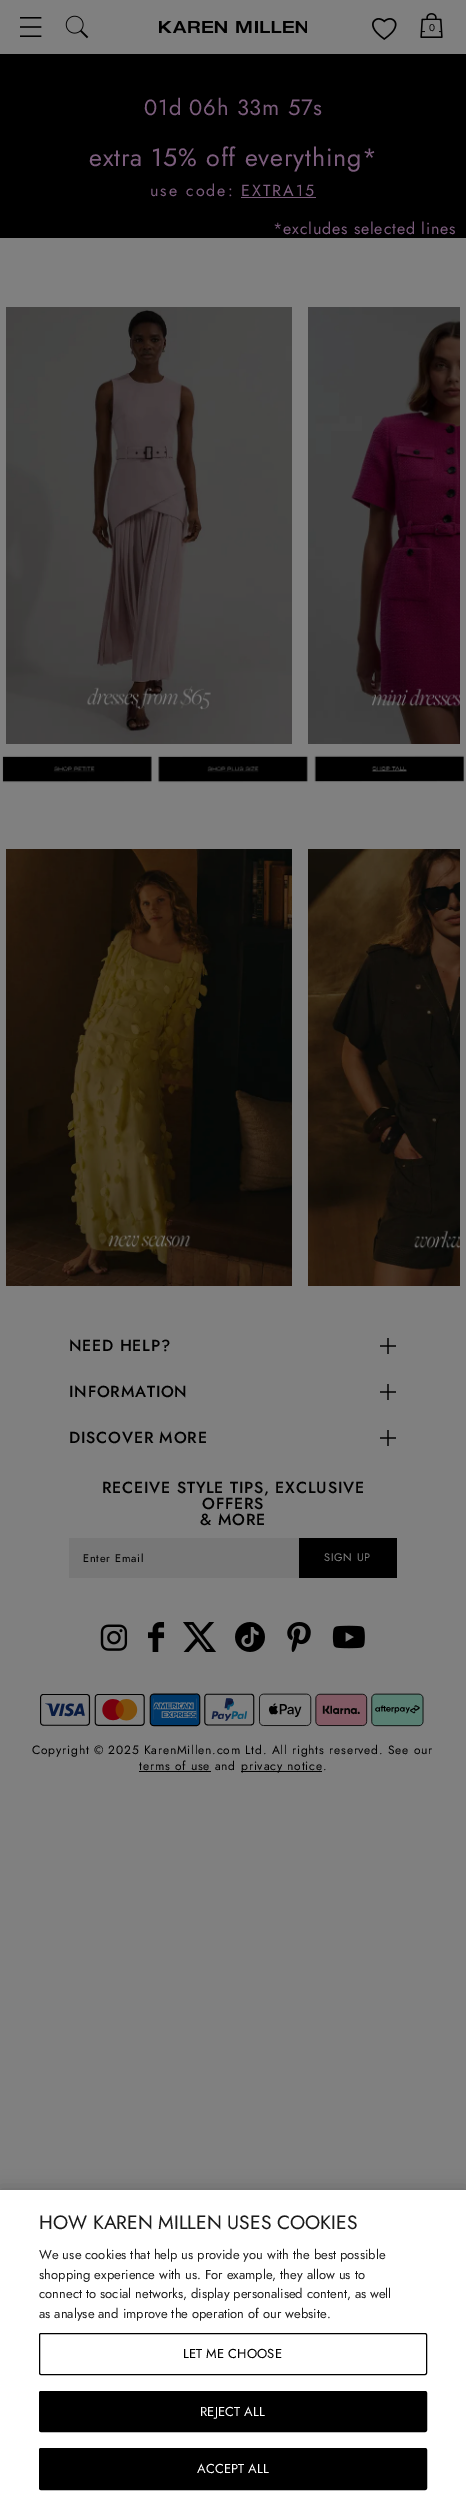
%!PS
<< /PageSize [466 2506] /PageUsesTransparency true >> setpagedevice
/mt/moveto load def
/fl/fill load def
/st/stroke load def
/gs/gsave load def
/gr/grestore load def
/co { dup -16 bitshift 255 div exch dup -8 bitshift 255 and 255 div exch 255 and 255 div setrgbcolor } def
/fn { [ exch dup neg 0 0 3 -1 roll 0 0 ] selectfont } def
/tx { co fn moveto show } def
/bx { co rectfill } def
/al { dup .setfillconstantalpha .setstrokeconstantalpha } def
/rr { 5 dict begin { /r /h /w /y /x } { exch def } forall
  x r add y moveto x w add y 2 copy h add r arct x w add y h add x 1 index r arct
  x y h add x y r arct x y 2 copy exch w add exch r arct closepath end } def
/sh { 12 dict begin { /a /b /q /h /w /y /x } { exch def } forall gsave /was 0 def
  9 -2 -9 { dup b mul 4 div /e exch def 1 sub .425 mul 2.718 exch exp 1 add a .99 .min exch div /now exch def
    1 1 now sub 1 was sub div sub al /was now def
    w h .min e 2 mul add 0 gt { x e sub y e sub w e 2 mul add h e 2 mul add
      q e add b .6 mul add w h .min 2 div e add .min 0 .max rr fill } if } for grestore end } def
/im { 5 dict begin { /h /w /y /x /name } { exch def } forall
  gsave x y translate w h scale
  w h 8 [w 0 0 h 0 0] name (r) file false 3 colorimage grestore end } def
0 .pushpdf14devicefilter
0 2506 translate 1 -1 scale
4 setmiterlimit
0 0 466 2506 16#808080 bx
(media/1.raw) 20 17 22 20 im
(media/2.raw) 65 15 24 24 im
(media/3.raw) 159 21 148 12 im
(media/4.raw) 372 18 25 22 im
(media/5.raw) 420 13 23 25 im
425 20 14 13 16#808080 bx
0 54 466 184 16#000000 bx
241 197 75 1 16#7B5C7C bx
(media/6.raw) 6 307 286 437 im
(media/7.raw) 308 307 152 437 im
(media/8.raw) 2 755 463 28 im
(media/9.raw) 6 849 286 437 im
(media/10.raw) 308 849 152 437 im
(media/11.raw) 380 1338 16 16 im
(media/11.raw) 380 1384 16 16 im
(media/11.raw) 380 1430 16 16 im
69 1538 230 40 16#777777 bx
299 1538 98 40 16#000000 bx
(media/12.raw) 100 1624 28 27 im
(media/13.raw) 148 1622 17 30 im
(media/14.raw) 183 1622 33 30 im
(media/15.raw) 235 1622 30 30 im
(media/16.raw) 287 1622 24 30 im
(media/17.raw) 332 1625 33 24 im
(media/18.raw) 40 1693 384 34 im
139 1771 72 1 16#000000 bx
241 1771 81 1 16#000000 bx
0 2190 466 316 0 9 .2 sh
0 2190 466 316 16#FFFFFF bx
16#000000 co
39.5 2333.5 387 41 1.5 rr st
39.5 2391.5 387 40 1.5 rr gs fl gr
st
39.5 2448.5 387 41 1.5 rr gs fl gr
st
/Jost-Regular 10 fn
429 31 mt .8 0 (0) ashow
/Jost-Regular 22 fn
16#7B5C7C co
144 115 mt .8 0 (01d 06h 33m 57s) ashow
/Jost-Regular 25 fn
89 166 mt .8 0 (extra 15% off everything*) ashow
/Jost-Regular 16 fn
150 196 mt 2 0 (use code: EXTRA15) ashow
273 234 mt .8 0 (*excludes selected lines) ashow
/Jost-Medium 16 fn
16#000000 co
69 1351 mt .8 0 (NEED HELP?) ashow
69 1397 mt .8 0 (INFORMATION) ashow
69 1443 mt .8 0 (DISCOVER MORE) ashow
102 1493 mt .8 0 (RECEIVE STYLE TIPS, EXCLUSIVE) ashow
202 1509 mt .8 0 (OFFERS) ashow
200 1525 mt .8 0 (& MORE) ashow
/Jost-Regular 11 fn
83 1562 mt .8 0 (Enter Email) ashow
16#808080 co
324 1561 mt .75 0 (SIGN UP) ashow
/Jost-Regular 12 fn
16#000000 co
32 1754 mt .8 0 (Copyright © 2025 KarenMillen.com Ltd. All rights reserved. See our) ashow
139 1770 mt .8 0 (terms of use and) ashow
241 1770 mt .8 0 (privacy notice.) ashow
(HOW KAREN MILLEN USES COOKIES) 39 2229 /Jost-Regular 19.25 16#1B1B1B tx
(We use cookies that help us provide you with the best possible) 39 2259 /Jost-Regular 13 16#1B1B1B tx
(shopping experience with us. For example, they allow us to) 39 2279 /Jost-Regular 13 16#1B1B1B tx
(connect to social networks, display personalised content, as well) 39 2298 /Jost-Regular 13 16#1B1B1B tx
(as analyse and improve the operation of our website.) 39 2318 /Jost-Regular 13 16#1B1B1B tx
16#000000 co
183 2358 mt .1 0 (LET ME CHOOSE) ashow
16#FFFFFF co
200 2416 mt .1 0 (REJECT ALL) ashow
197 2473 mt .1 0 (ACCEPT ALL) ashow
.poppdf14devicefilter showpage
